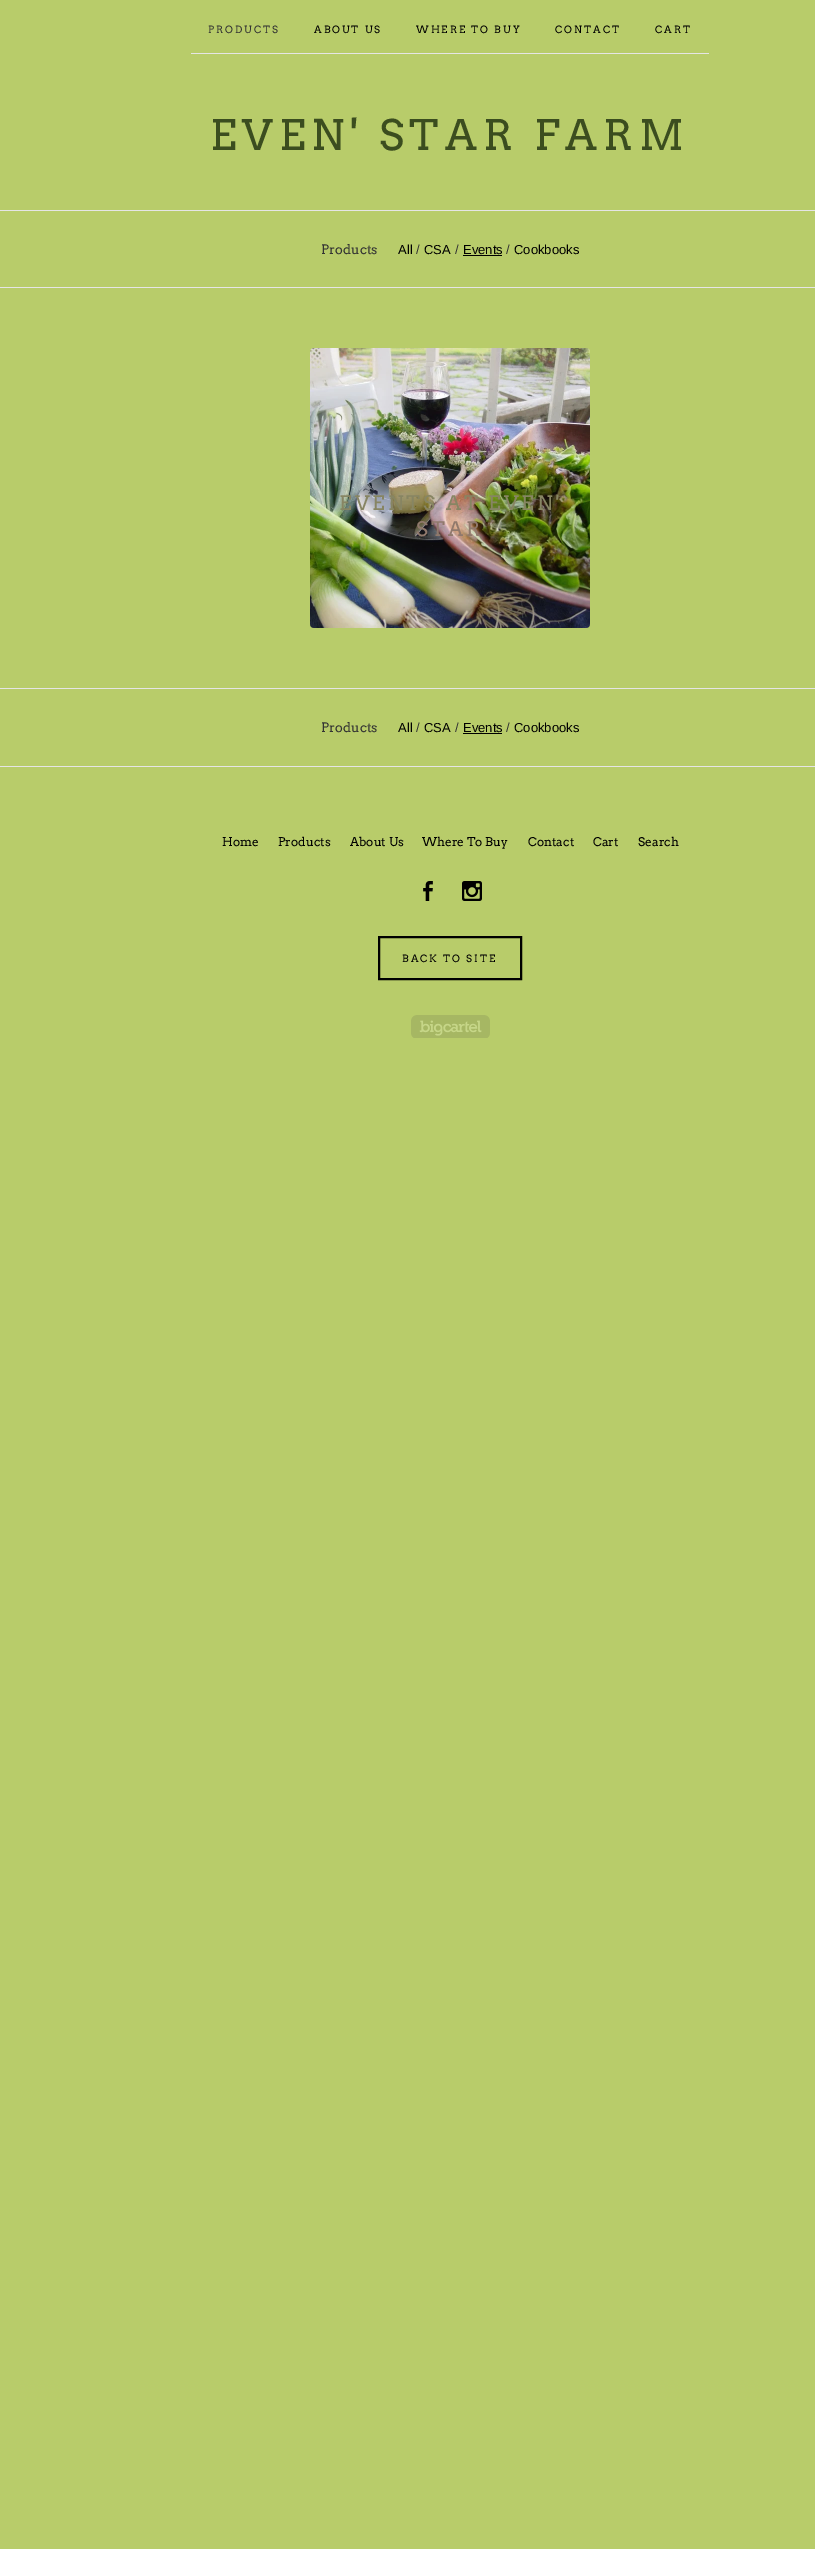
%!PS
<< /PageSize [815 2549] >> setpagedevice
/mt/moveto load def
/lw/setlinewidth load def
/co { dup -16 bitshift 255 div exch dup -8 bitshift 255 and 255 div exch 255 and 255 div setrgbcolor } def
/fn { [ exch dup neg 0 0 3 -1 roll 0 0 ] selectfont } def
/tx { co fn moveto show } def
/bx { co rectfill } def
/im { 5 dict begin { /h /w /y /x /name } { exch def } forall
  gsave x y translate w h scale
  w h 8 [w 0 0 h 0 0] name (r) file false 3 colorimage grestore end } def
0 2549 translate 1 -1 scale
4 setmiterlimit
0 0 815 2549 16#B8CC6A bx
191 53 518 1 16#E5E5E5 bx
0 210 815 1 16#E5E5E5 bx
0 287 815 1 16#E5E5E5 bx
463 255 39 1 16#000000 bx
(media/1.raw) 310 348 280 280 im
0 688 815 1 16#E5E5E5 bx
0 766 815 1 16#E5E5E5 bx
463 733 39 1 16#000000 bx
(media/2.raw) 423 881 10 20 im
(media/3.raw) 462 881 20 20 im
2 lw
379 937 142 42 rectstroke
(media/4.raw) 411 1015 79 23 im
/Arvo-Regular 10 fn
16#333333 co
208 33 mt 2 0 (PRODUCTS) ashow
16#000000 co
314 33 mt 2 0 (ABOUT US) ashow
416 33 mt 2 0 (WHERE TO BUY) ashow
555 33 mt 2 0 (CONTACT) ashow
655 33 mt 2 0 (CART) ashow
/Arvo-Regular 42 fn
16#3B4D1F co
210 150 mt 6 0 (EVEN' STAR FARM) ashow
(Products) 321 254 /Arvo-Regular 13 16#333333 tx
(All) 398 254 /LiberationSans-Regular 13 16#000000 tx
(/) 416 254 /LiberationSans-Regular 13 16#333333 tx
(CSA) 424 254 /LiberationSans-Regular 13 16#000000 tx
(/) 455 254 /LiberationSans-Regular 13 16#333333 tx
(Events) 463 254 /LiberationSans-Regular 13 16#000000 tx
(/) 506 254 /LiberationSans-Regular 13 16#333333 tx
(Cookbooks) 514 254 /LiberationSans-Regular 13 16#000000 tx
/Arvo-Regular 20 fn
16#878563 co
339 510 mt 3 0 (EVENTS AT EVEN') ashow
16#90796C co
416 536 mt 3 0 (STAR) ashow
(Products) 321 732 /Arvo-Regular 13 16#333333 tx
(All) 398 732 /LiberationSans-Regular 13 16#000000 tx
(/) 416 732 /LiberationSans-Regular 13 16#333333 tx
(CSA) 424 732 /LiberationSans-Regular 13 16#000000 tx
(/) 455 732 /LiberationSans-Regular 13 16#333333 tx
(Events) 463 732 /LiberationSans-Regular 13 16#000000 tx
(/) 506 732 /LiberationSans-Regular 13 16#333333 tx
(Cookbooks) 514 732 /LiberationSans-Regular 13 16#000000 tx
(Home) 222 846 /Arvo-Regular 12 16#000000 tx
(Products) 278 846 /Arvo-Regular 12 16#000000 tx
(About Us) 350 846 /Arvo-Regular 12 16#000000 tx
(Where To Buy) 422 846 /Arvo-Regular 12 16#000000 tx
(Contact) 528 846 /Arvo-Regular 12 16#000000 tx
(Cart) 593 846 /Arvo-Regular 12 16#000000 tx
(Search) 638 846 /Arvo-Regular 12 16#000000 tx
/Arvo-Regular 10 fn
402 962 mt 2 0 (BACK TO SITE) ashow
showpage
